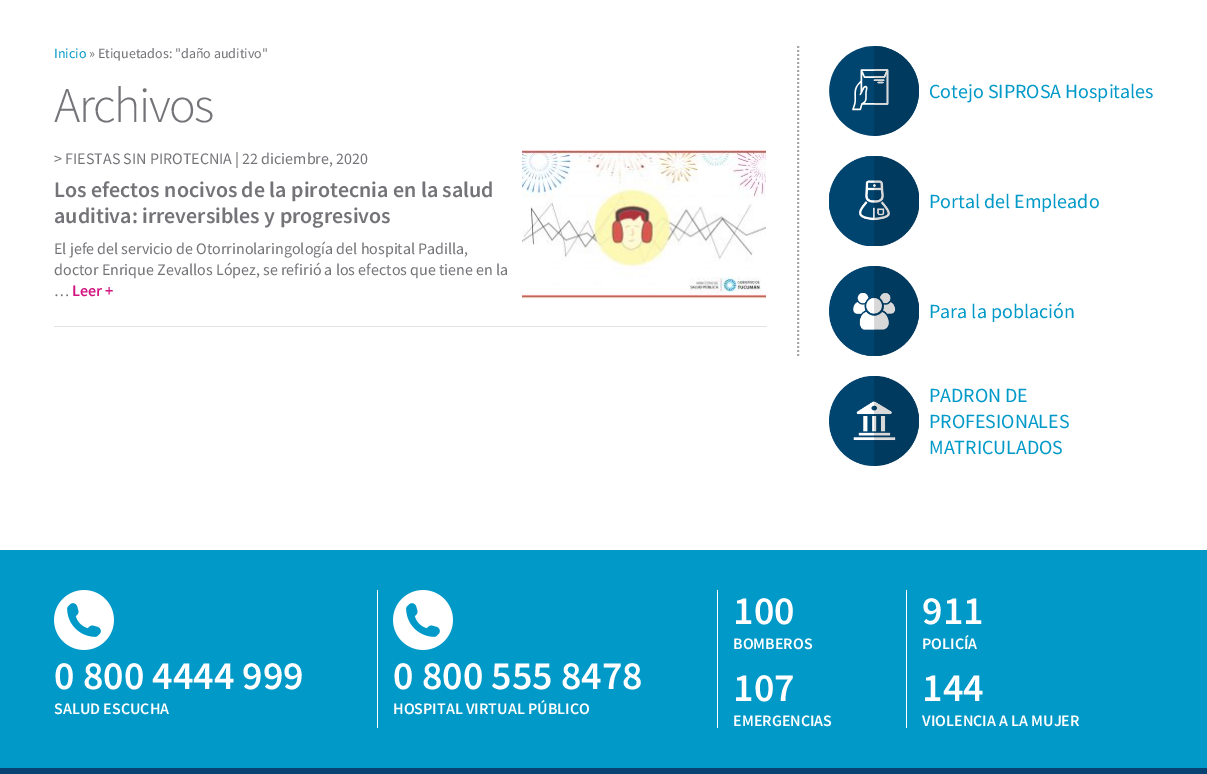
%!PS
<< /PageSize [1207 774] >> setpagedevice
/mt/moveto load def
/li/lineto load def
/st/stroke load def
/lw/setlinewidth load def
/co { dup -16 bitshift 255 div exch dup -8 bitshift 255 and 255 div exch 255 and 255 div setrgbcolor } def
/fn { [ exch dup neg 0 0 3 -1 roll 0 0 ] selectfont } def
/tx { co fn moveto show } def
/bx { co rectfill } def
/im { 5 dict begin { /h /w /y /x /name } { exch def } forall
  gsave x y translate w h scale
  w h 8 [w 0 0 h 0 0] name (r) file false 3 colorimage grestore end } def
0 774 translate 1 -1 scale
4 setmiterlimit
0 0 1207 774 16#FFFFFF bx
16#A7A7AA co
2 lw
[2 2] 0 setdash
798 46 mt 798 358 li st
54 326 713 1 16#E3E3E3 bx
(media/1.raw) 522 150 244 149 im
(media/2.raw) 829 46 90 90 im
(media/3.raw) 829 156 90 90 im
(media/4.raw) 829 266 90 90 im
(media/5.raw) 829 376 90 90 im
0 550 1207 218 16#0199C8 bx
0 768 1207 6 16#084272 bx
(media/6.raw) 54 590 60 60 im
377 590 1 138 16#FFFFFF bx
(media/6.raw) 393 590 60 60 im
717 590 1 138 16#FFFFFF bx
906 590 1 138 16#FFFFFF bx
(Inicio) 54 58 /SourceSansPro-Regular 14 16#0199C8 tx
(» Etiquetados: "daño auditivo") 89 58 /SourceSansPro-Regular 14 16#747378 tx
/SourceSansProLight-Light 50 fn
54 122 mt -1.5 0 (Archivos) ashow
(> FIESTAS SIN PIROTECNIA | 22 diciembre, 2020) 54 164 /SourceSansPro-Regular 16 16#747378 tx
(Los efectos nocivos de la pirotecnia en la salud) 54 197 /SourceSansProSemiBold-SemiBold 22 16#747378 tx
(auditiva: irreversibles y progresivos) 54 223 /SourceSansProSemiBold-SemiBold 22 16#747378 tx
(El jefe del servicio de Otorrinolaringología del hospital Padilla,) 54 254 /SourceSansPro-Regular 16 16#747378 tx
(doctor Enrique Zevallos López, se refirió a los efectos que tiene en la) 54 275 /SourceSansPro-Regular 16 16#747378 tx
(…) 54 296 /SourceSansPro-Regular 16 16#747378 tx
(Leer +) 72 296 /SourceSansProSemiBold-SemiBold 16 16#D41682 tx
(Cotejo SIPROSA Hospitales) 929 98 /SourceSansPro-Regular 20 16#0199C8 tx
(Portal del Empleado) 929 208 /SourceSansPro-Regular 20 16#0199C8 tx
(Para la población) 929 318 /SourceSansPro-Regular 20 16#0199C8 tx
(PADRON DE) 929 402 /SourceSansPro-Regular 20 16#0199C8 tx
(PROFESIONALES) 929 428 /SourceSansPro-Regular 20 16#0199C8 tx
(MATRICULADOS) 929 454 /SourceSansPro-Regular 20 16#0199C8 tx
(0 800 4444 999) 54 689 /SourceSansProSemiBold-SemiBold 40 16#FFFFFF tx
(SALUD ESCUCHA) 54 714 /SourceSansProSemiBold-SemiBold 16 16#FFFFFF tx
(0 800 555 8478) 393 689 /SourceSansProSemiBold-SemiBold 40 16#FFFFFF tx
(HOSPITAL VIRTUAL PÚBLICO) 393 714 /SourceSansProSemiBold-SemiBold 16 16#FFFFFF tx
(100) 733 624 /SourceSansProSemiBold-SemiBold 40 16#FFFFFF tx
(BOMBEROS) 733 649 /SourceSansProSemiBold-SemiBold 16 16#FFFFFF tx
(107) 733 701 /SourceSansProSemiBold-SemiBold 40 16#FFFFFF tx
(EMERGENCIAS) 733 726 /SourceSansProSemiBold-SemiBold 16 16#FFFFFF tx
(911) 922 624 /SourceSansProSemiBold-SemiBold 40 16#FFFFFF tx
(POLICÍA) 922 649 /SourceSansProSemiBold-SemiBold 16 16#FFFFFF tx
(144) 922 701 /SourceSansProSemiBold-SemiBold 40 16#FFFFFF tx
(VIOLENCIA A LA MUJER) 922 726 /SourceSansProSemiBold-SemiBold 16 16#FFFFFF tx
showpage
